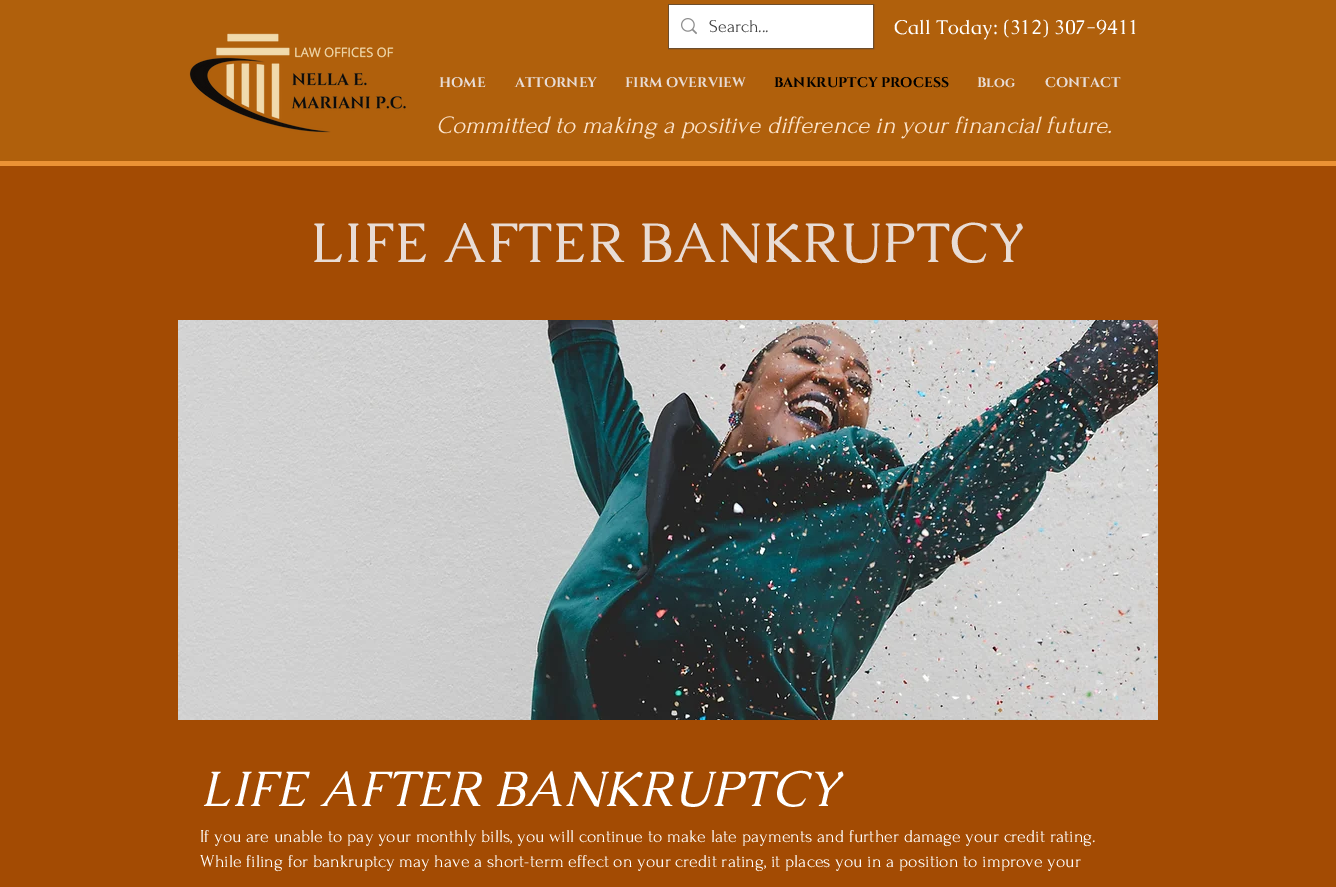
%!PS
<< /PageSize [1336 887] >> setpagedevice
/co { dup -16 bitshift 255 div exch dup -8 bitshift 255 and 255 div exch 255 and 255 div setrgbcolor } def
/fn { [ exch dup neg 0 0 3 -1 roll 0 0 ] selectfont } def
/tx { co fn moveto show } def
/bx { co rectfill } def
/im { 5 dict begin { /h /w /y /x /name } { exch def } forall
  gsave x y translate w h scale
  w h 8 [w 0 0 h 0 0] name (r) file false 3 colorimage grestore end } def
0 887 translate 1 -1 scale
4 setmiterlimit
0 0 1336 887 16#A34B03 bx
0 0 1336 161 16#B0600C bx
0 161 1336 5 16#EC9234 bx
16#6D4D2C co
668.5 4.5 205 44 rectstroke
669 5 204 43 16#FFFFFF bx
(media/1.raw) 681 18 16 17 im
(media/2.raw) 189 33 217 100 im
(media/3.raw) 178 320 980 400 im
(Search...) 709 32 /Forum-Regular 18 16#414141 tx
(Call Today: \(312\) 307-9411) 894 34 /Caudex-Regular 20 16#FFFFFF tx
(HOME) 439 87 /Cinzel-Bold 14 16#E8DCD5 tx
(ATTORNEY) 515 87 /Cinzel-Bold 14 16#E8DCD5 tx
(FIRM OVERVIEW) 625 87 /Cinzel-Bold 14 16#E8DCD5 tx
(BANKRUPTCY PROCESS) 774 87 /Cinzel-Bold 14 16#000000 tx
(Blog) 977 87 /Cinzel-Bold 14 16#E8DCD5 tx
(CONTACT) 1045 87 /Cinzel-Bold 14 16#E8DCD5 tx
(Committed to making a positive difference in your financial future.) 436 133 /Forum-Italic 25 16#FCE4CB tx
(LIFE AFTER BANKRUPTCY) 310 262 /Caudex-Regular 56 16#E8DCD5 tx
(LIFE AFTER BANKRUPTCY) 200 806 /Caudex-Italic 50 16#FFFFFF tx
(If you are unable to pay your monthly bills, you will continue to make late payments and further damage your credit rating.) 200 842 /Forum-Regular 18 16#FFFFFF tx
(While filing for bankruptcy may have a short-term effect on your credit rating, it places you in a position to improve your) 200 867 /Forum-Regular 18 16#FFFFFF tx
showpage
